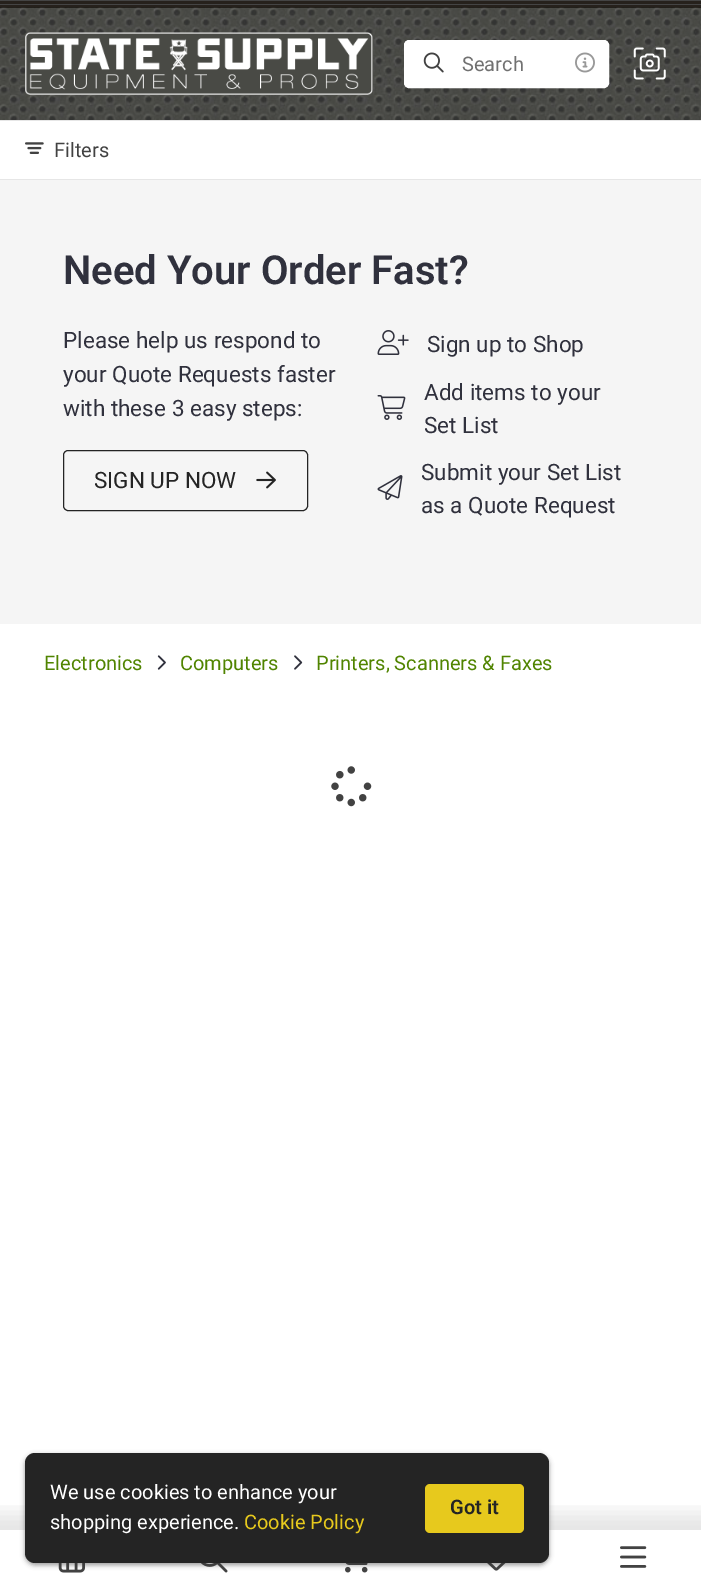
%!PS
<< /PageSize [701 1587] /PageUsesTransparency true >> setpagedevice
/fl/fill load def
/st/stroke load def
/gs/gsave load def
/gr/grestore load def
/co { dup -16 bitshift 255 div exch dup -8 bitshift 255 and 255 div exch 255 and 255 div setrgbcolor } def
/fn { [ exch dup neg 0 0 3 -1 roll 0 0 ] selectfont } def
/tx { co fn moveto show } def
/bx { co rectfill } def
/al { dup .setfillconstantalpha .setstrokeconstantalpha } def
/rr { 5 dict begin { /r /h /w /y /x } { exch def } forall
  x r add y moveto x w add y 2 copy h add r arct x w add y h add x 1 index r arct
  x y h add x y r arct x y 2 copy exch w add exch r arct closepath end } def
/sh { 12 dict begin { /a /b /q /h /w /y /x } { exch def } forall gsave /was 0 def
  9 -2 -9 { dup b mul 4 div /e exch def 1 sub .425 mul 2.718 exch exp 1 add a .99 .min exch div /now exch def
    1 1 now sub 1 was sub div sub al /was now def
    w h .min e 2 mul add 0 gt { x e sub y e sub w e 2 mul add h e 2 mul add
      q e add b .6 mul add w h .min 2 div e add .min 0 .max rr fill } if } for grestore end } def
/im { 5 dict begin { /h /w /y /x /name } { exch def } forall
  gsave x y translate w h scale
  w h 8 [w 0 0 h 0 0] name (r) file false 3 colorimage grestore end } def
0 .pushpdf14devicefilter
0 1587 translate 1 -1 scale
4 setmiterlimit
0 0 701 1587 16#FFFFFF bx
0 0 701 1 16#444444 bx
0 1 701 3 16#26211C bx
0 4 701 1 16#444444 bx
0 5 701 3 16#26211C bx
(media/1.raw) 0 7 701 113 im
25 33 348 62 16#494A45 bx
(media/2.raw) 25 32 348 63 im
16#FFFFFF co
404.5 40.5 204 47 4.5 rr gs fl gr
st
(media/3.raw) 423 52 21 21 im
(media/4.raw) 575 52 20 21 im
(media/5.raw) 633 47 33 33 im
0 120 701 1 16#E6E6E6 bx
0 179 701 1 16#E6E6E6 bx
(media/6.raw) 25 142 19 12 im
0 180 701 444 16#F5F5F5 bx
16#242424 co
63.5 450.5 244 60 4.5 rr st
(media/7.raw) 256 471 20 18 im
(media/8.raw) 377 330 32 25 im
(media/9.raw) 377 395 29 25 im
(media/10.raw) 377 475 26 25 im
(media/11.raw) 157 655 9 15 im
(media/12.raw) 294 655 9 15 im
(media/13.raw) 331 766 41 41 im
gs
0 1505 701 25 rectclip
16#000000 co
-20 1513 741 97 0 10 .1 sh
gr
(media/14.raw) 58 1563 27 10 im
(media/15.raw) 201 1563 27 10 im
(media/16.raw) 345 1563 23 10 im
(media/17.raw) 487 1563 19 8 im
(media/18.raw) 620 1546 27 22 im
16#323232 co
25 1455 524 110 10 2.5 .5 sh
16#242424 co
25 1453 524 110 10 rr fl
16#E7C91D co
425 1484 99 49 5 rr fl
(Search) 462 71 /Roboto-Regular 20 16#717171 tx
(Filters) 54 157 /Roboto-Regular 20 16#424242 tx
(Need Your Order Fast?) 63 284 /Roboto-SemiBold 40 16#30313D tx
(Please help us respond to) 63 348 /Roboto-Regular 22.5 16#30313D tx
(your Quote Requests faster) 63 382 /Roboto-Regular 22.5 16#30313D tx
(with these 3 easy steps:) 63 416 /Roboto-Regular 22.5 16#30313D tx
(SIGN UP NOW) 94 488 /Roboto-Regular 22.5 16#242424 tx
(Sign up to Shop) 427 352 /Roboto-Regular 22.5 16#30313D tx
(Add items to your) 424 400 /Roboto-Regular 22.5 16#30313D tx
(Set List) 424 433 /Roboto-Regular 22.5 16#30313D tx
(Submit your Set List) 421 480 /Roboto-Regular 22.5 16#30313D tx
(as a Quote Request) 421 513 /Roboto-Regular 22.5 16#30313D tx
(Electronics) 44 670 /Roboto-Regular 20 16#508400 tx
(Computers) 180 670 /Roboto-Regular 20 16#508400 tx
(Printers, Scanners & Faxes) 316 670 /Roboto-Regular 20 16#508400 tx
(We use cookies to enhance your) 50 1499 /Roboto-Regular 20 16#FFFFFF tx
(shopping experience.) 50 1529 /Roboto-Regular 20 16#FFFFFF tx
(Cookie Policy) 244 1529 /Roboto-Regular 20 16#E7C91D tx
(Got it) 450 1514 /Roboto-SemiBold 20 16#242424 tx
.poppdf14devicefilter showpage
